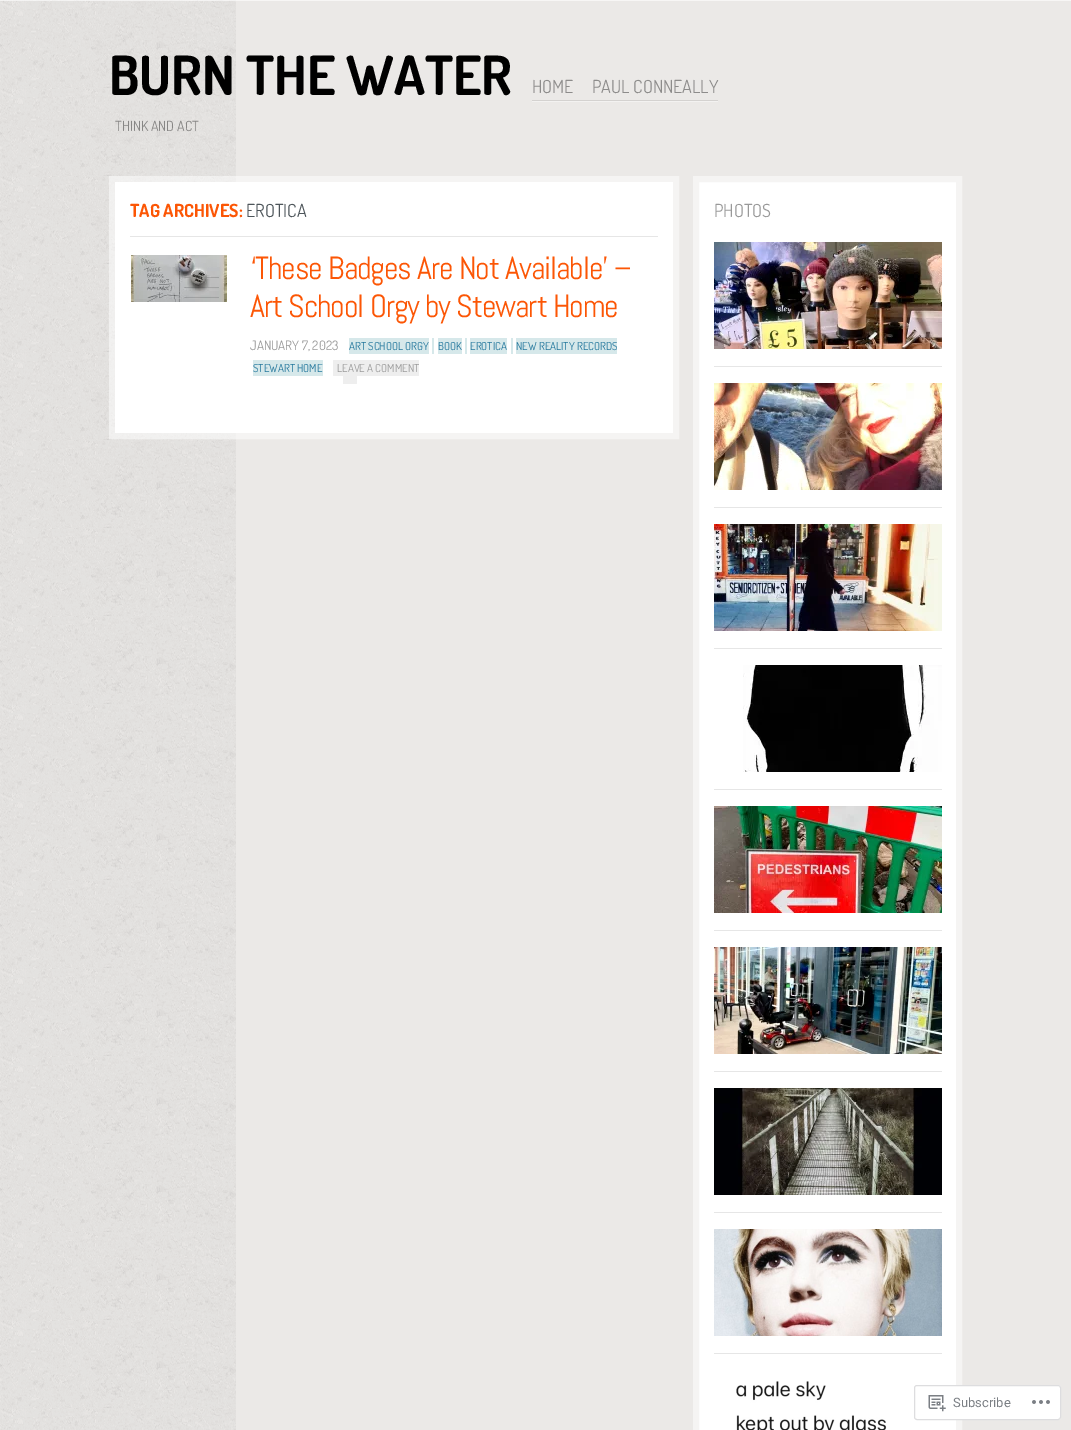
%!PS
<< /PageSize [1071 1430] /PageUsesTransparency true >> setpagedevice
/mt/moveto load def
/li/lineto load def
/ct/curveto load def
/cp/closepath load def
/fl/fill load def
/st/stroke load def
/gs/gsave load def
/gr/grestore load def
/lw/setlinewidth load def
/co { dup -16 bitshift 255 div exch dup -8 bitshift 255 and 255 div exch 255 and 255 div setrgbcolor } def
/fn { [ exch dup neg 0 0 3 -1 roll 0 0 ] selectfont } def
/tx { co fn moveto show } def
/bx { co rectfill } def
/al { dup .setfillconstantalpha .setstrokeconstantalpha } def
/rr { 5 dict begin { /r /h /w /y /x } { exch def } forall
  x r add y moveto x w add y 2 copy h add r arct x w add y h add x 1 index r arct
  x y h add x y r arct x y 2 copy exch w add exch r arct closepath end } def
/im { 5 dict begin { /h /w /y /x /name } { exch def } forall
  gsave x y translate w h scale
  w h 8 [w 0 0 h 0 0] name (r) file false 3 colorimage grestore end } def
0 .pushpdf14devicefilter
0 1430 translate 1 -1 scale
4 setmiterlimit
0 0 1071 1430 16#EBE9E7 bx
(media/1.raw) 0 0 236 1430 im
0.6 al
0 0 1071 1 16#FFFFFF bx
1 al
532 101 186 1 16#F3F2F1 bx
532 100 186 1 16#D4D2D0 bx
115 182 558 251 16#FFFFFF bx
0.5 al
6 lw
112 179 564 257 rectstroke
1 al
130 236 528 1 16#E6E6E6 bx
(media/2.raw) 131 255 96 47 im
16#D6E8EA co
350 338 mt 429 338 li 429 354 li 350 354 li 349.5 354 349 353.5 349 353 ct 349 339 li 349 338.5 349.5 338 350 338 ct cp fl
432 338 2 16 16#D6E8EA bx
438 338 24 16 16#D6E8EA bx
465 338 2 16 16#D6E8EA bx
470 338 37 16 16#D6E8EA bx
511 338 2 16 16#D6E8EA bx
516 338 101 16 16#D6E8EA bx
253 360 mt 322 360 li 322.5 360 323 360.5 323 361 ct 323 375 li 323 375.5 322.5 376 322 376 ct 253 376 li cp fl
16#EEEEEE co
334 360 mt 419 360 li 419 376 li 334 376 li 333.5 376 333 375.5 333 375 ct 333 361 li 333 360.5 333.5 360 334 360 ct cp fl
343 375 mt 356 375 li 356.5 375 357 375.5 357 376 ct 357 383 li 357 383.5 356.5 384 356 384 ct 343 384 li cp fl
16#FFFFFF co
696 179 mt 959 179 li 959 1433 li 696 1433 li cp gs fl gr
16#F5F4F3 co
st
714 366 228 1 16#E6E6E6 bx
(media/3.raw) 714 242 228 107 im
714 507 228 1 16#E6E6E6 bx
(media/4.raw) 714 383 228 107 im
714 648 228 1 16#E6E6E6 bx
(media/5.raw) 714 524 228 107 im
714 789 228 1 16#E6E6E6 bx
(media/6.raw) 743 665 199 107 im
714 930 228 1 16#E6E6E6 bx
(media/7.raw) 714 806 228 107 im
714 1071 228 1 16#E6E6E6 bx
(media/8.raw) 714 947 228 107 im
714 1212 228 1 16#E6E6E6 bx
(media/9.raw) 714 1088 228 107 im
714 1353 228 1 16#E6E6E6 bx
(media/10.raw) 714 1229 228 107 im
(media/11.raw) 736 1381 151 49 im
0.98 al
16#FFFFFF co
914 1385 147 35 3 rr fl
16#DCDCDE co
1 lw
914.5 1385.5 146 34 2.5 rr st
1 al
(media/12.raw) 928 1395 18 17 im
(media/13.raw) 1032 1400 18 4 im
(BURN THE WATER) 109 95 /Dosis-Bold 54 16#000000 tx
(THINK AND ACT) 115 131 /Dosis-Regular 14 16#878685 tx
(HOME) 532 93 /Dosis-Regular 18 16#8D8C8B tx
(PAUL CONNEALLY) 592 93 /Dosis-Regular 18 16#8D8C8B tx
(TAG ARCHIVES:) 130 217 /Dosis-Bold 18 16#FC5605 tx
(EROTICA) 246 217 /Dosis-Regular 18 16#4D555A tx
/Abel-Regular 32 fn
16#FC5605 co
250 279 mt -1.1 0 (‘These Badges Are Not Available’ –) ashow
250 317 mt -1.1 0 (Art School Orgy by Stewart Home) ashow
(JANUARY 7, 2023) 250 350 /Dosis-Regular 13 16#999999 tx
(ART SCHOOL ORGY) 349 350 /Dosis-Regular 11 16#21759B tx
(BOOK) 438 350 /Dosis-Regular 11 16#21759B tx
(EROTICA) 470 350 /Dosis-Regular 11 16#21759B tx
(NEW REALITY RECORDS) 516 350 /Dosis-Regular 11 16#21759B tx
(STEWART HOME) 253 372 /Dosis-Regular 11 16#21759B tx
(LEAVE A COMMENT) 337 372 /Dosis-Regular 11 16#999999 tx
(PHOTOS) 714 217 /Dosis-Regular 18 16#999999 tx
(Subscribe) 953 1407 /Roboto-Regular 13 16#7B7F84 tx
.poppdf14devicefilter showpage
